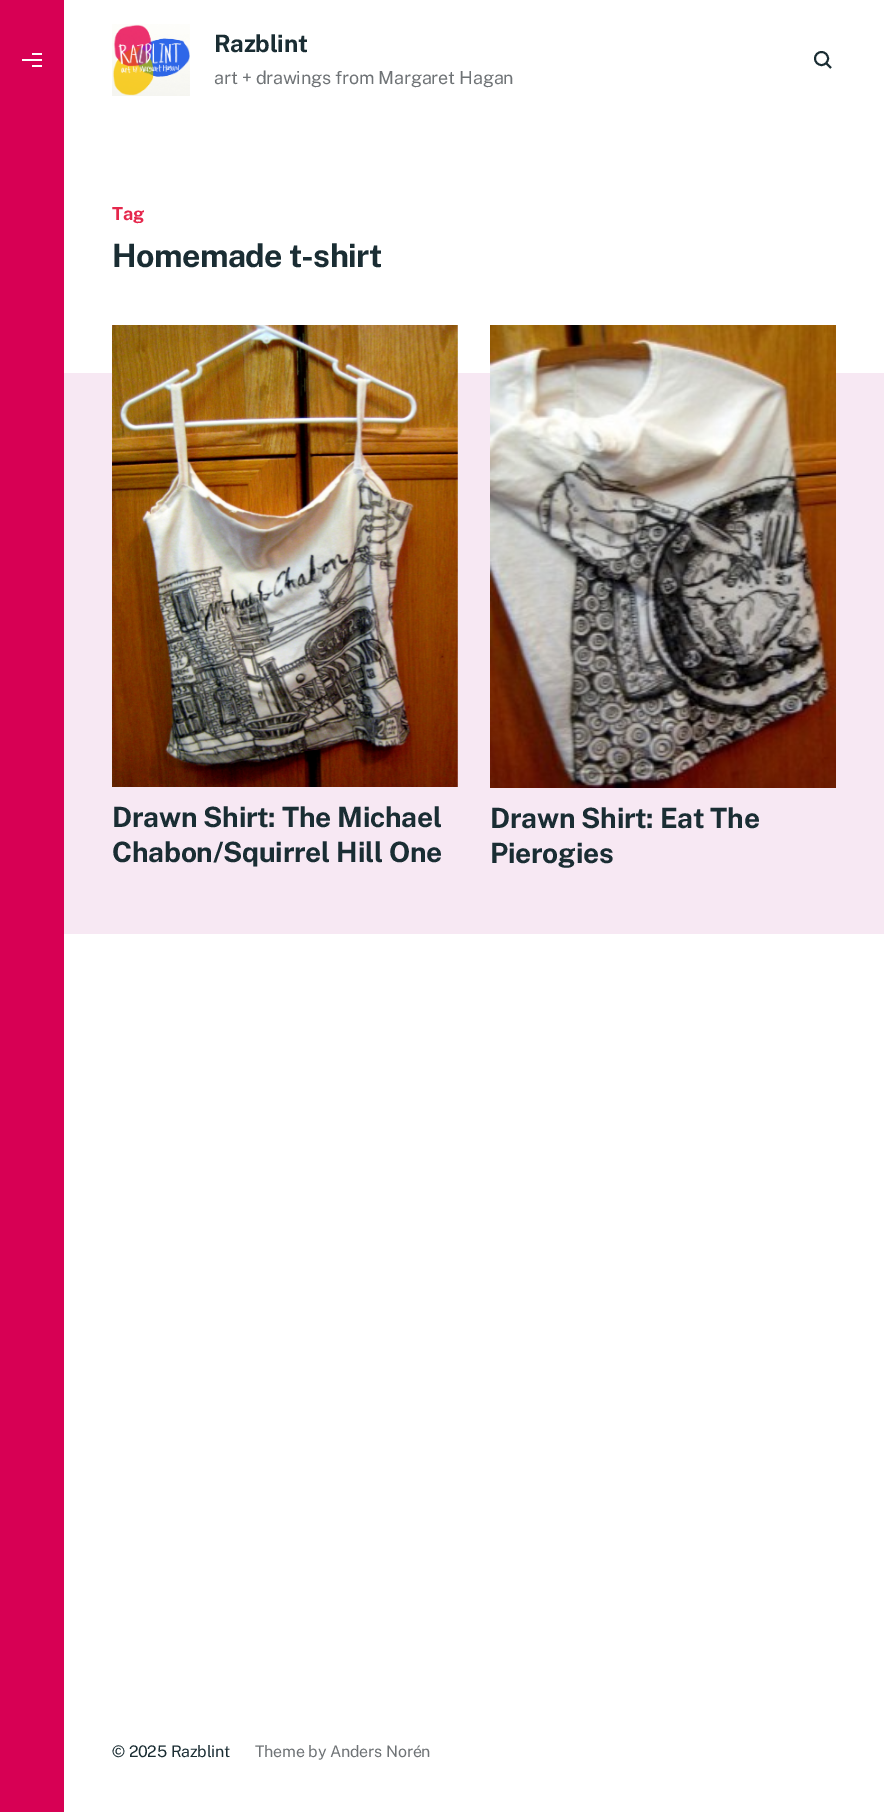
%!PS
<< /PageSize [884 1812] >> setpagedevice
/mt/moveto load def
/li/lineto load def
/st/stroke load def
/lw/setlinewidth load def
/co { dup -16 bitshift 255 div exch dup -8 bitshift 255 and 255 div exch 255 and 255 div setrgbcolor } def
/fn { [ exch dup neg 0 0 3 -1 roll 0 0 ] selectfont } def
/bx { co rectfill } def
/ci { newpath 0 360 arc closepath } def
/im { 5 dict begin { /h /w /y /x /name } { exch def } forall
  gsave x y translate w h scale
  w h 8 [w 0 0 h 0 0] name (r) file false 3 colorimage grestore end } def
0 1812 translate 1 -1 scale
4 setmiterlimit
0 0 884 1812 16#FFFFFF bx
0 0 64 1812 16#D70054 bx
32 53 10 2 16#FFFFFF bx
22 59 20 2 16#FFFFFF bx
32 65 10 2 16#FFFFFF bx
(media/1.raw) 112 24 78 72 im
16#1A2D33 co
1.9 lw
821.5 58.5 6.5 ci st
831 68 mt 826 63 li st
64 373 820 561 16#F7E8F3 bx
(media/2.raw) 112 325 346 462 im
(media/3.raw) 490 325 346 463 im
/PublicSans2-Thin 24 fn
16#1A2D33 co
214 52 mt -.25 0 (Razblint) ashow
/PublicSans-Thin 18 fn
16#6F7376 co
214 84 mt -.2 0 (art + drawings from Margaret Hagan) ashow
/PublicSans2-Thin 18 fn
16#E5274C co
112 220 mt -.2 0 (Tag) ashow
/PublicSans2-Thin 32 fn
16#1A2D33 co
112 267 mt -.6 0 (Homemade t-shirt) ashow
/PublicSans2-Thin 28 fn
112 827 mt -.25 0 (Drawn Shirt: The Michael) ashow
112 862 mt -.25 0 (Chabon/Squirrel Hill One) ashow
490 828 mt -.25 0 (Drawn Shirt: Eat The) ashow
490 863 mt -.25 0 (Pierogies) ashow
/PublicSans-Thin 16 fn
112 1757 mt -.2 0 (© 2025 Razblint) ashow
16#6F7376 co
255 1757 mt -.2 0 (Theme by Anders Norén) ashow
showpage
